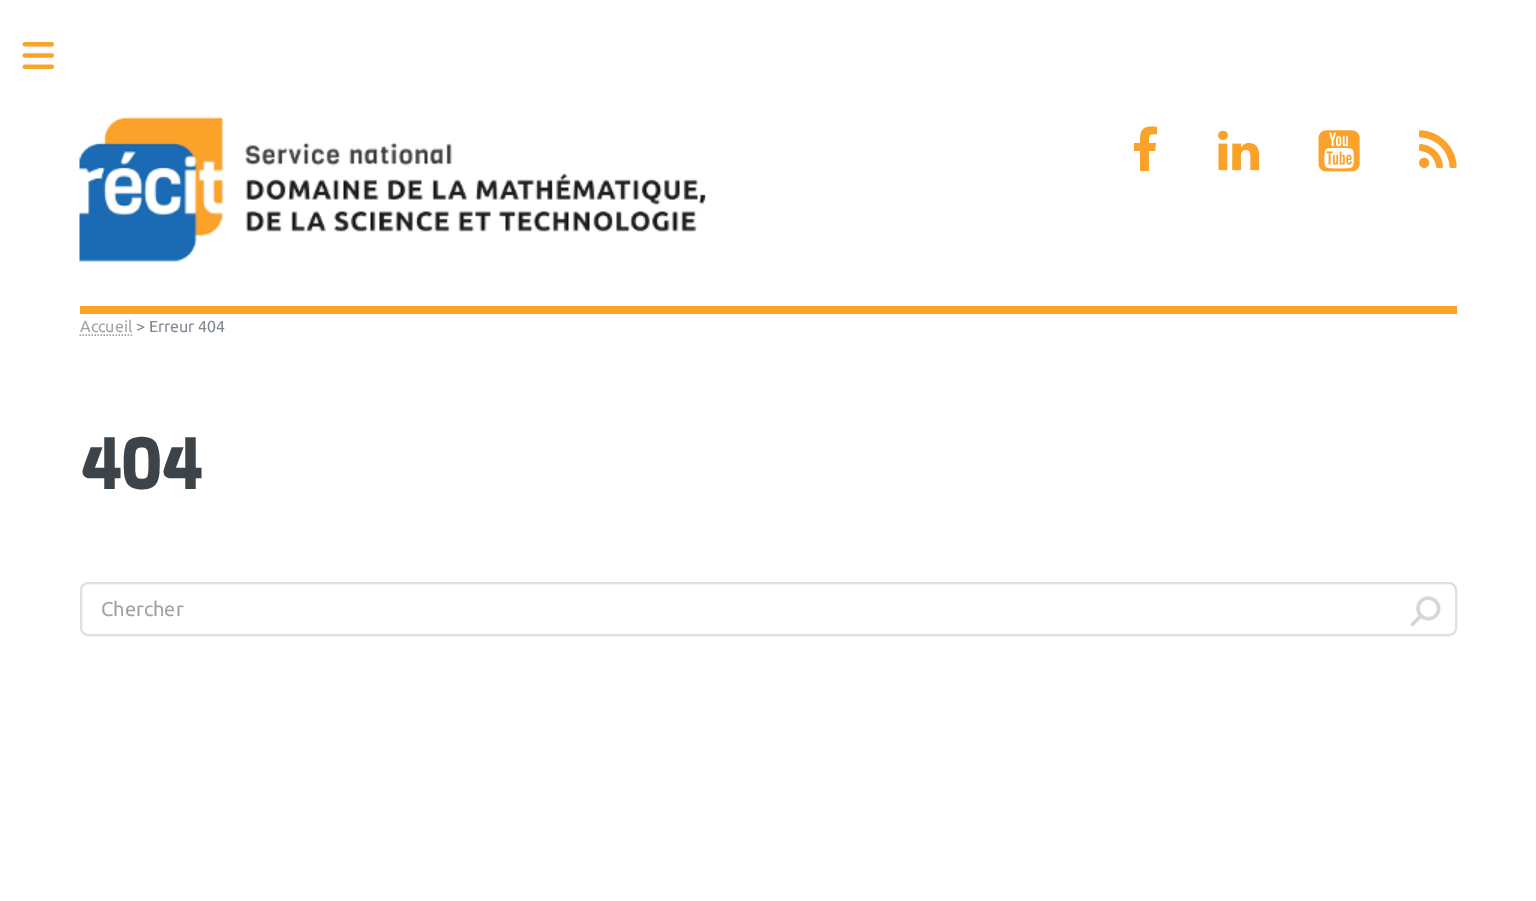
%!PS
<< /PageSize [1536 901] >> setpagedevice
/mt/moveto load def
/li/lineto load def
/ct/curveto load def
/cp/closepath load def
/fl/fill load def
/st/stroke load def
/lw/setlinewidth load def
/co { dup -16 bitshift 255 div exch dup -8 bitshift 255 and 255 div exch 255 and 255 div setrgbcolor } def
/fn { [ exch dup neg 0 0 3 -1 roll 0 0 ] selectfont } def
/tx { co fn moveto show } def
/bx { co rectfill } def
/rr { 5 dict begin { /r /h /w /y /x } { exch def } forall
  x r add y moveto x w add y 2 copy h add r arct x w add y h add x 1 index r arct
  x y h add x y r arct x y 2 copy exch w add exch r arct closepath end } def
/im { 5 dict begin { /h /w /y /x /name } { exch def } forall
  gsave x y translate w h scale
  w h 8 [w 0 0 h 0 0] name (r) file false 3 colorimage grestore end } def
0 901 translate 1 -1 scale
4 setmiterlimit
0 0 1536 901 16#FFFFFF bx
(media/1.raw) 22 42 32 27 im
80 306 1377 8 16#FAA22A bx
(media/2.raw) 79 116 627 147 im
1157 127 mt 1157 134 li 1148 134 1149 135 1149 143 ct 1156 143 li 1155 151 li 1149 151 li 1149 171 li 1140 171 li 1140 151 li 1134 151 li 1134 143 li 1140 143 li 1140 130 1142 125 1157 127 ct cp fl
(media/3.raw) 1218 130 42 41 im
(media/4.raw) 1318 130 42 42 im
(media/5.raw) 1419 130 38 38 im
16#9FA3A6 co
1.5 lw
[1.5 1.5] 0 setdash
79.5 335 mt 132 335 li st
16#DDE1E3 co
2 lw
[] 0 setdash
81 583 1375 52 7 rr st
(media/6.raw) 1410 596 31 31 im
(Accueil) 80 332 /Ubuntu-Regular 16 16#9FA3A6 tx
(> Erreur 404) 136 332 /Ubuntu-Regular 16 16#7F888F tx
(404) 80 489 /Viga-Bold 70 16#3D4449 tx
(Chercher) 101 616 /Ubuntu-Regular 20 16#9FA3A6 tx
showpage
